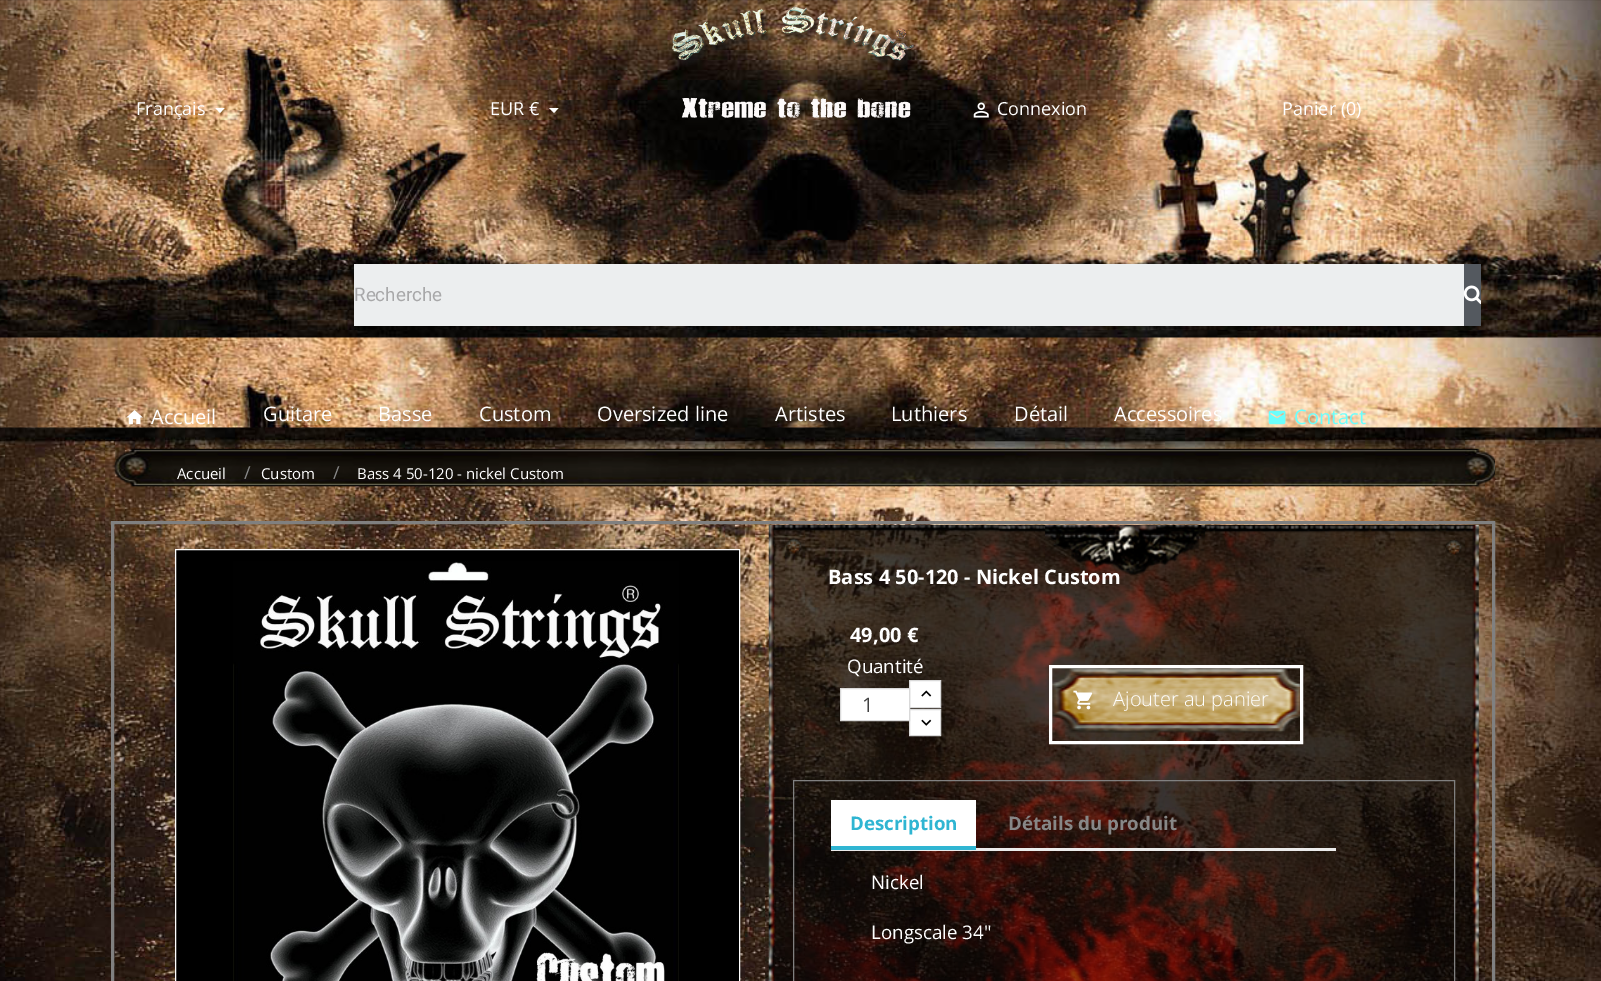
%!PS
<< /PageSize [1601 981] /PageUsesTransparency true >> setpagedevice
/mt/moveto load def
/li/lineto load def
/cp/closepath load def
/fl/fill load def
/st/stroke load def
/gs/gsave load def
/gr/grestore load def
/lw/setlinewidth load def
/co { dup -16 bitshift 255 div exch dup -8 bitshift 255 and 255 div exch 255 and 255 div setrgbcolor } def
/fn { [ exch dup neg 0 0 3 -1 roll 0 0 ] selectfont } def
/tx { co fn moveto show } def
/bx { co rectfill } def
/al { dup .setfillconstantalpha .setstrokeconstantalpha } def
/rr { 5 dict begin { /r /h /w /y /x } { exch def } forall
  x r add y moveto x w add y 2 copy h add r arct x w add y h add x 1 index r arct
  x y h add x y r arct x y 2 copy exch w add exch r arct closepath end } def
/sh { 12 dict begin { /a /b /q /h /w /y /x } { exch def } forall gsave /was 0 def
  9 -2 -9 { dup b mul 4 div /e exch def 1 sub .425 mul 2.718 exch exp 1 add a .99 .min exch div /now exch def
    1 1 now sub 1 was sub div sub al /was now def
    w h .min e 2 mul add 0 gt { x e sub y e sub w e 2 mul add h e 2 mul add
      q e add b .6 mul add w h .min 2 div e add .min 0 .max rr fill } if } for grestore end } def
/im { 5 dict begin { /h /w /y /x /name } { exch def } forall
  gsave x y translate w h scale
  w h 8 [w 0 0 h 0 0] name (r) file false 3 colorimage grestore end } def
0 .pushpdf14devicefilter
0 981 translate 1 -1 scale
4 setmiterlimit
0 0 1601 981 16#FFFFFF bx
(media/1.raw) 0 0 1601 428 im
(media/2.raw) 672 6 247 61 im
215.5 108 mt 224.5 108 li 220 113 li cp fl
549 108 mt 558.5 108 li 554 113 li cp fl
(media/3.raw) 681 97 230 21 im
(media/4.raw) 973 102 16 16 im
354 264 1110 62 16#ECEEEF bx
1464 264 17 62 16#54595F bx
(media/5.raw) 1463 285 18 20 im
(media/6.raw) 126 410 17 15 im
(media/7.raw) 1268 410 18 15 im
(media/8.raw) 0 427 1601 554 im
(media/9.raw) 109 448 1386 39 im
16#808080 co
3 lw
112.5 522.5 1381 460 rectstroke
16#000000 co
178 551 565 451 0 7 .1 sh
175.5 549.5 mt 739.5 549.5 li 739.5 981.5 li 175.5 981.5 li cp gs fl gr
16#FFFFFF co
1 lw
st
(media/10.raw) 233 561 446 420 im
(media/11.raw) 768 525 711 456 im
909.5 680.5 mt 940.5 680.5 li 940.5 707.5 li 909.5 707.5 li cp gs fl gr
16#D9D9D9 co
st
16#FFFFFF co
909.5 709.5 mt 940.5 709.5 li 940.5 735.5 li 909.5 735.5 li cp gs fl gr
16#D9D9D9 co
st
16#FFFFFF co
840.5 688.5 mt 909.5 688.5 li 909.5 720.5 li 840.5 720.5 li cp gs fl gr
16#D9D9D9 co
st
(media/12.raw) 921 690 11 7 im
(media/13.raw) 921 719 11 7 im
(media/14.raw) 1052 668 248 65 im
16#FFFFFF co
3 lw
1050.5 666.5 251 76 rectstroke
(media/15.raw) 1073 690 20 20 im
16#808080 co
1 lw
793.5 780.5 661 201 rectstroke
831 848 505 3 16#EBEBEB bx
831 800 145 46 16#FFFFFF bx
831 846 145 4 16#2FB5D2 bx
(Français) 136 115 /OpenSans-Regular 18 16#FFFFFF tx
(EUR €) 490 115 /OpenSans-Regular 18 16#FFFFFF tx
(Connexion) 997 115 /OpenSans-Regular 18 16#FFFFFF tx
(Panier \(0\)) 1282 115 /OpenSans-Regular 18 16#FFFFFF tx
(Recherche) 354 301 /Roboto-Regular 18.75 16#A8A8A9 tx
(Accueil) 151 424 /OpenSans-Regular 20 16#FFFFFF tx
(Guitare) 263 421 /OpenSans-Regular 20 16#FFFFFF tx
(Basse) 378 421 /OpenSans-Regular 20 16#FFFFFF tx
(Custom) 479 421 /OpenSans-Regular 20 16#FFFFFF tx
(Oversized line) 597 421 /OpenSans-Regular 20 16#FFFFFF tx
(Artistes) 775 421 /OpenSans-Regular 20 16#FFFFFF tx
(Luthiers) 891 421 /OpenSans-Regular 20 16#FFFFFF tx
(Détail) 1014 421 /OpenSans-Regular 20 16#FFFFFF tx
(Accessoires) 1114 421 /OpenSans-Regular 20 16#FFFFFF tx
(Contact) 1294 424 /OpenSans-Regular 20 16#6AFFFD tx
(Accueil) 177 479 /OpenSans-Regular 15 16#FFFFFF tx
(/) 244 479 /OpenSans-Regular 18 16#878787 tx
(Custom) 261 479 /OpenSans-Regular 15 16#FFFFFF tx
(/) 333 479 /OpenSans-Regular 18 16#878787 tx
(Bass 4 50-120 - nickel Custom) 357 479 /OpenSans-Regular 15 16#FFFFFF tx
(Bass 4 50-120 - Nickel Custom) 828 584 /OpenSans-Bold 20 16#FFFFFF tx
(49,00 €) 850 642 /OpenSans-Bold 20 16#FFFFFF tx
(Quantité) 847 673 /OpenSans-Regular 18.75 16#FFFFFF tx
(1) 862 712 /OpenSans-Regular 20 16#414141 tx
(Ajouter au panier) 1113 706 /OpenSans-Light 20 16#FFFFFF tx
(Description) 850 830 /OpenSans-Bold 18.75 16#2FB5D2 tx
(Détails du produit) 1008 830 /OpenSans-Bold 18.75 16#878787 tx
(Nickel) 871 889 /OpenSans-Regular 18.75 16#FFFFFF tx
(Longscale 34") 871 939 /OpenSans-Regular 18.75 16#FFFFFF tx
.poppdf14devicefilter showpage
